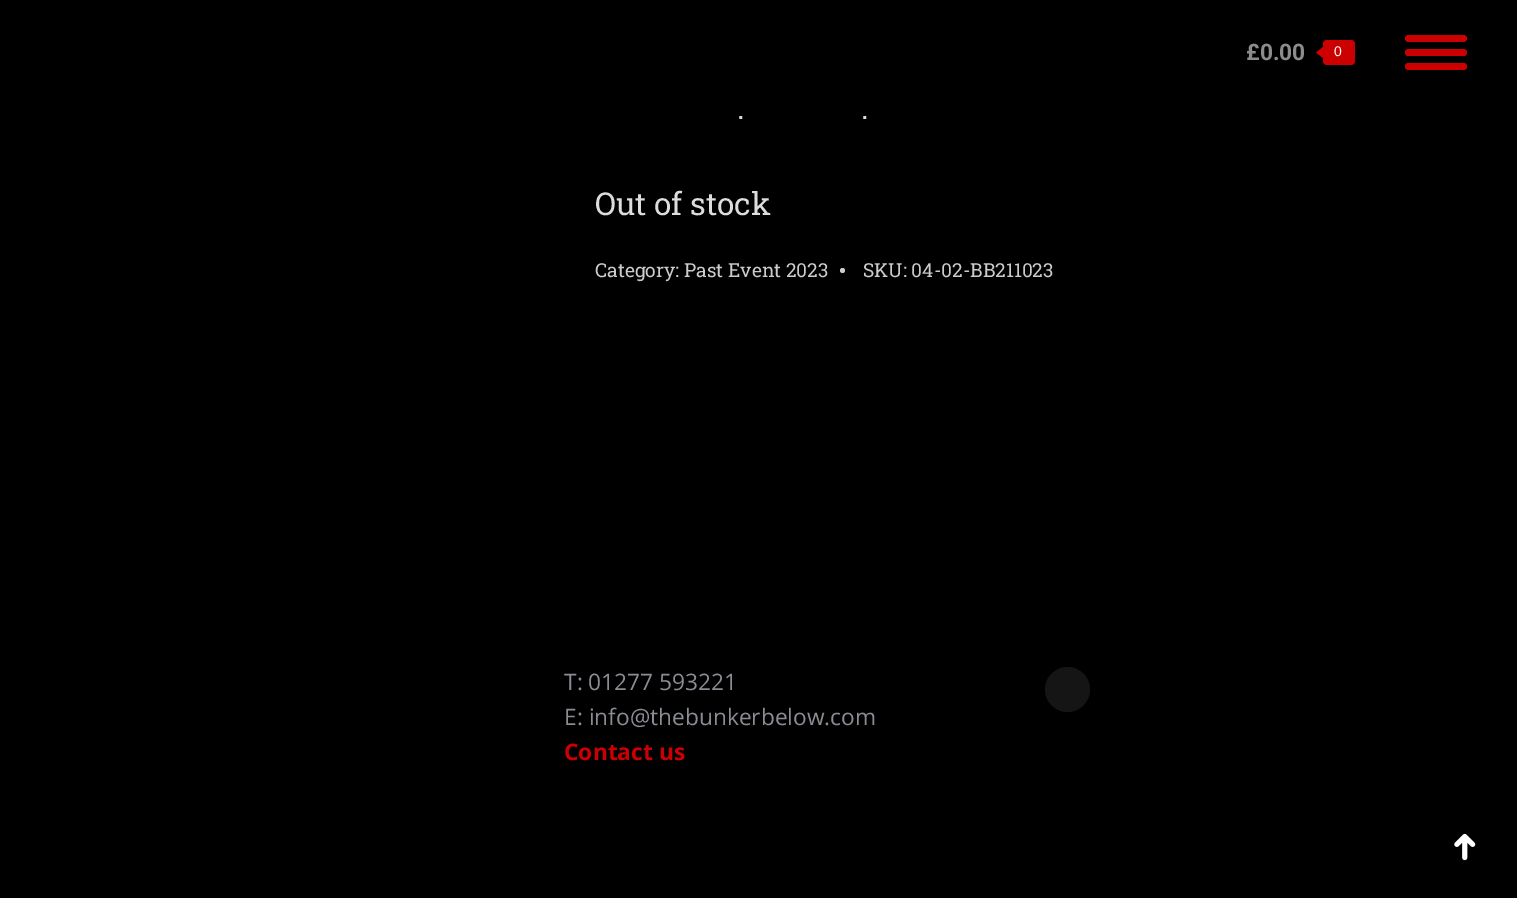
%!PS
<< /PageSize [1517 898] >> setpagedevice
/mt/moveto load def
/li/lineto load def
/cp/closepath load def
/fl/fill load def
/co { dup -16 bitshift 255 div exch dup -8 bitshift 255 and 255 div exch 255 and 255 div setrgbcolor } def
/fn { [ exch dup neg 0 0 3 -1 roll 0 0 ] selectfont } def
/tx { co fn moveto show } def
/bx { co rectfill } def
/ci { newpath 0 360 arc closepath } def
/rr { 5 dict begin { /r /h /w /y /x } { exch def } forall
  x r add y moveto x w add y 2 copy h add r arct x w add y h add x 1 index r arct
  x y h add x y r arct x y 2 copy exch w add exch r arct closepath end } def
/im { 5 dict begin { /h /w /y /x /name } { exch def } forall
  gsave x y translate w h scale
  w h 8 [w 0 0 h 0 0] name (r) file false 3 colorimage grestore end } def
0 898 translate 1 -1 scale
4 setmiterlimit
0 0 1517 898 16#000000 bx
16#CC0000 co
1323 40 32 25 4 rr fl
1323 47 mt 1323 58 li 1316 52.5 li cp fl
1405 35 62 7 3.5 rr fl
1405 49 62 7 3.5 rr fl
1405 63 62 7 3.5 rr fl
16#CCCCCC co
842.5 270.5 2.5 ci fl
16#151516 co
1067.5 689.5 22.5 ci fl
(media/1.raw) 1454 833 22 28 im
(£0.00) 1246 60 /Roboto-Bold 22.75 16#8C8C8C tx
(0) 1334 56 /LiberationSans-Regular 14 16#FFFFFF tx
(.) 737 119 /RobotoSlab-Regular 31.5 16#DDDDDD tx
(.) 861 119 /RobotoSlab-Regular 31.5 16#DDDDDD tx
(Out of stock) 595 215 /RobotoSlab-Regular 31.5 16#DDDDDD tx
(Category: Past Event 2023) 595 277 /RobotoSlab-Regular 19.25 16#CCCCCC tx
(SKU: 04-02-BB211023) 863 277 /RobotoSlab-Regular 19.25 16#CCCCCC tx
(T: 01277 593221) 564 690 /OpenSans-Regular 22.75 16#8B8D94 tx
(E: info@thebunkerbelow.com) 564 725 /OpenSans-Regular 22.75 16#8B8D94 tx
(Contact us) 564 760 /OpenSans-Bold 22.75 16#CC0000 tx
showpage
